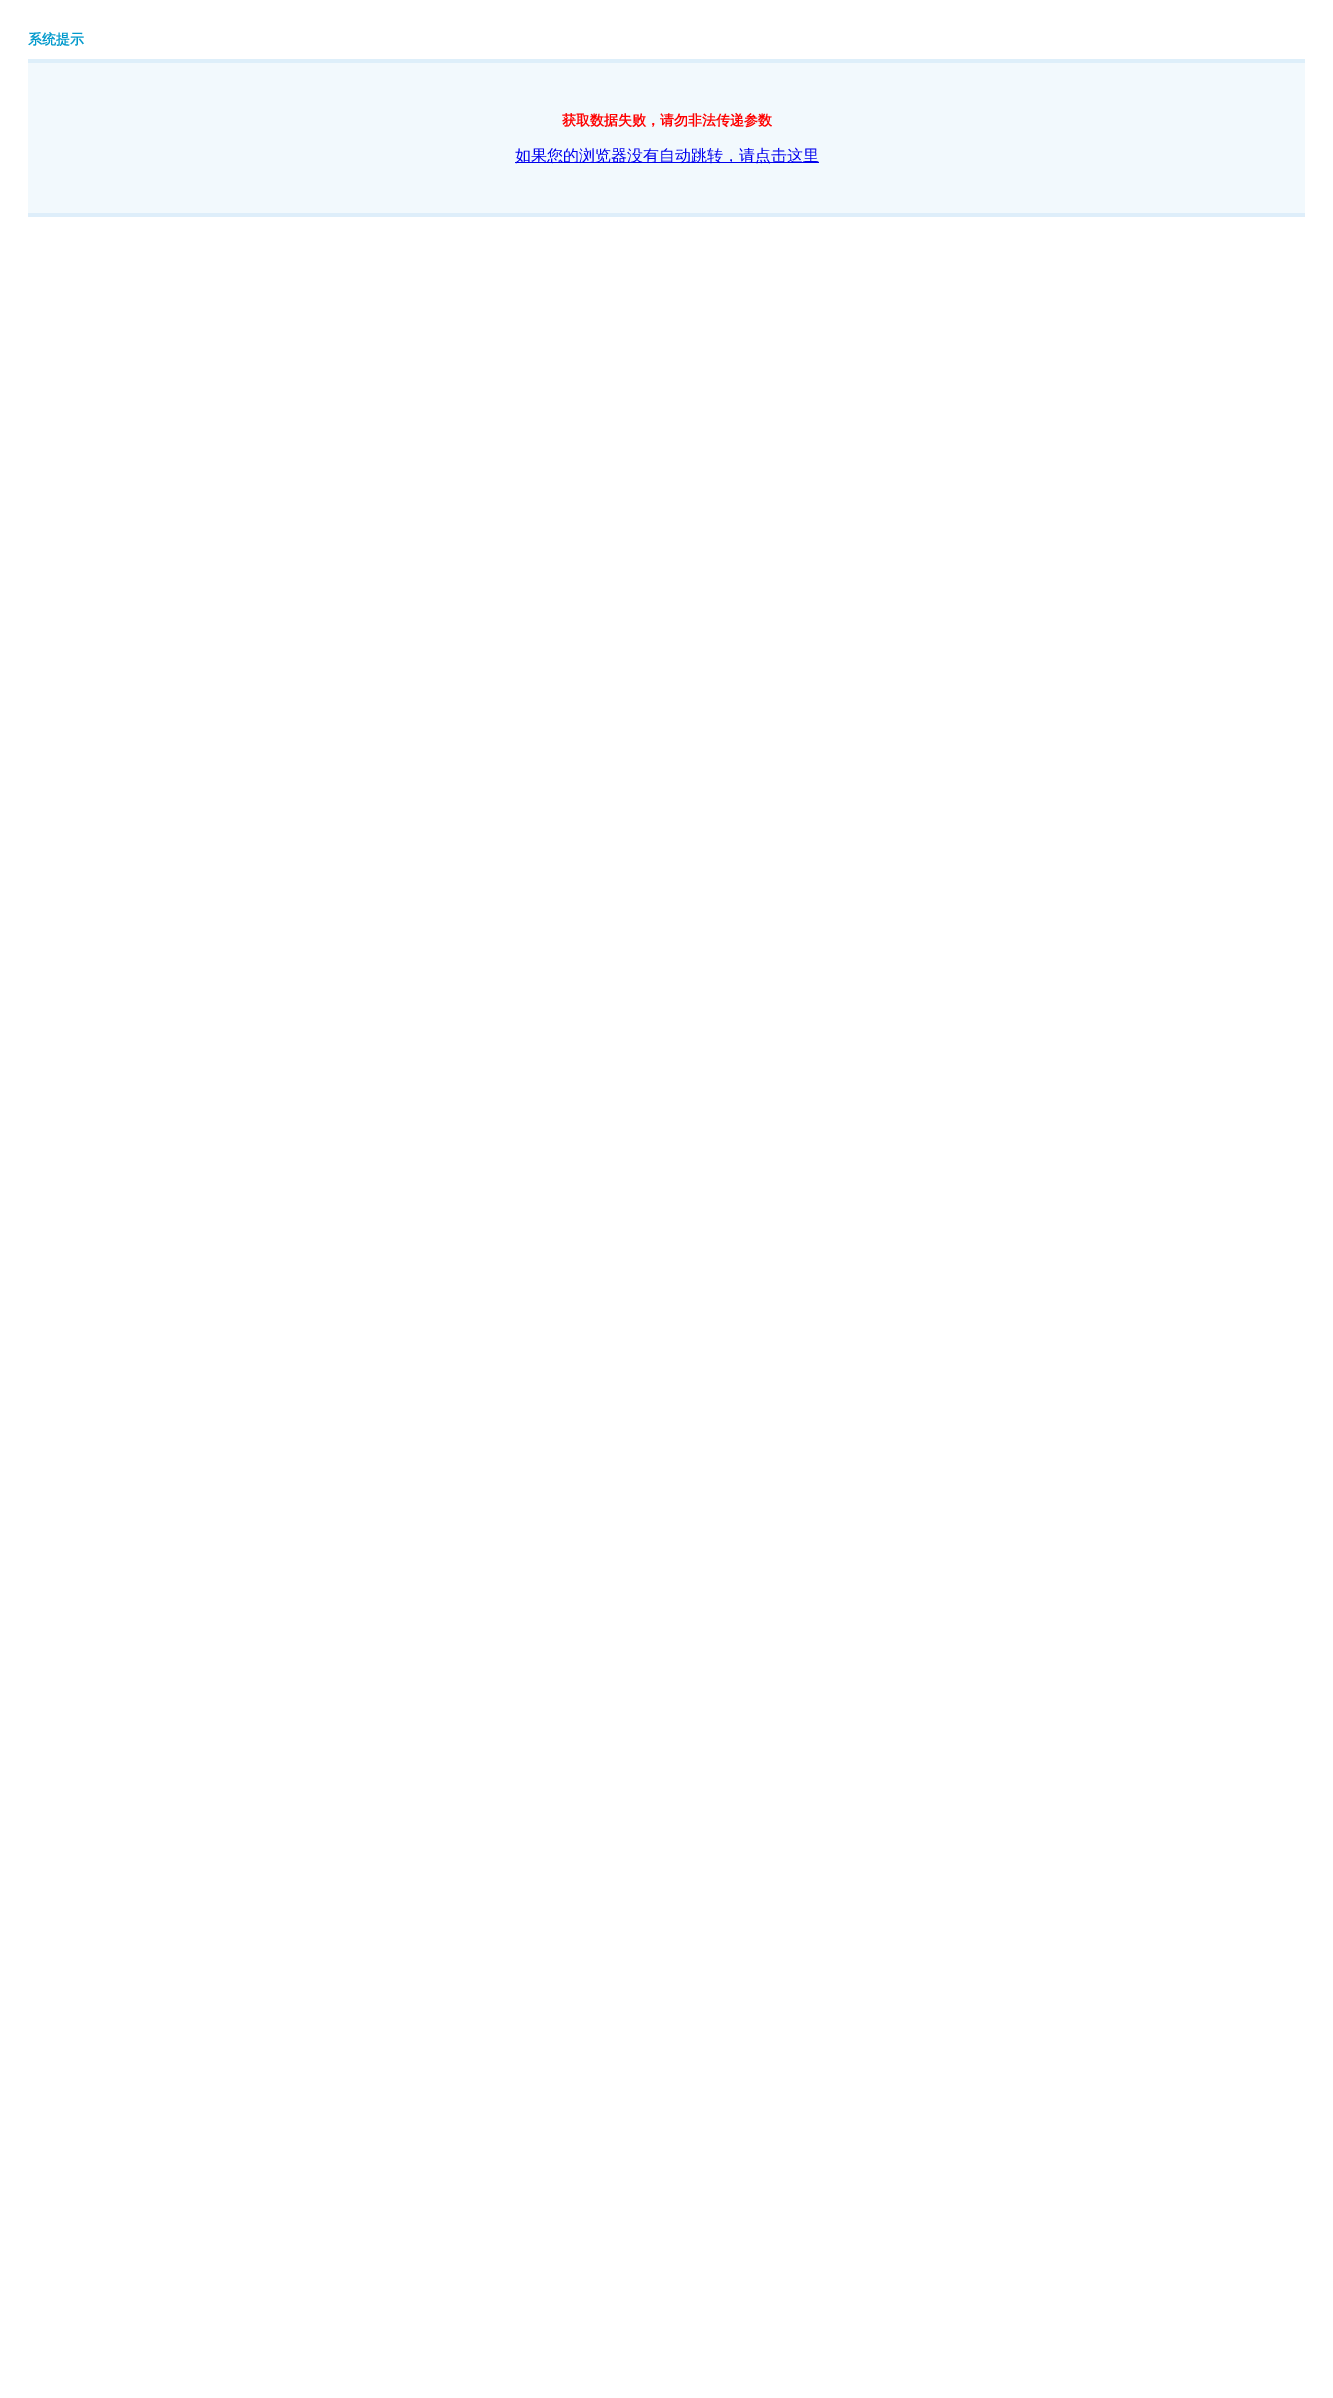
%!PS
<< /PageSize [1333 2398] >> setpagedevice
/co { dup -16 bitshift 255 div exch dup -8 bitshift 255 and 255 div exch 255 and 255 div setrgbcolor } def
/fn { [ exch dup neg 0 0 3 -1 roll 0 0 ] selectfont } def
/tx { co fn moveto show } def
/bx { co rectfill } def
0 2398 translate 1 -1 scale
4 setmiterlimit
0 0 1333 2398 16#FFFFFF bx
28 63 1277 150 16#F2F9FD bx
28 59 1277 4 16#DEEFFA bx
28 213 1277 4 16#DEEEFA bx
515 162 304 1 16#0000EE bx
(系统提示) 28 44 /WenQuanYiZenHei-Bold 14 16#0099CC tx
(获取数据失败，请勿非法传递参数) 562 125 /WenQuanYiZenHei-Bold 14 16#FF0000 tx
(如果您的浏览器没有自动跳转，请点击这里) 515 161 /WenQuanYiZenHei-Medium 16 16#0000EE tx
showpage
